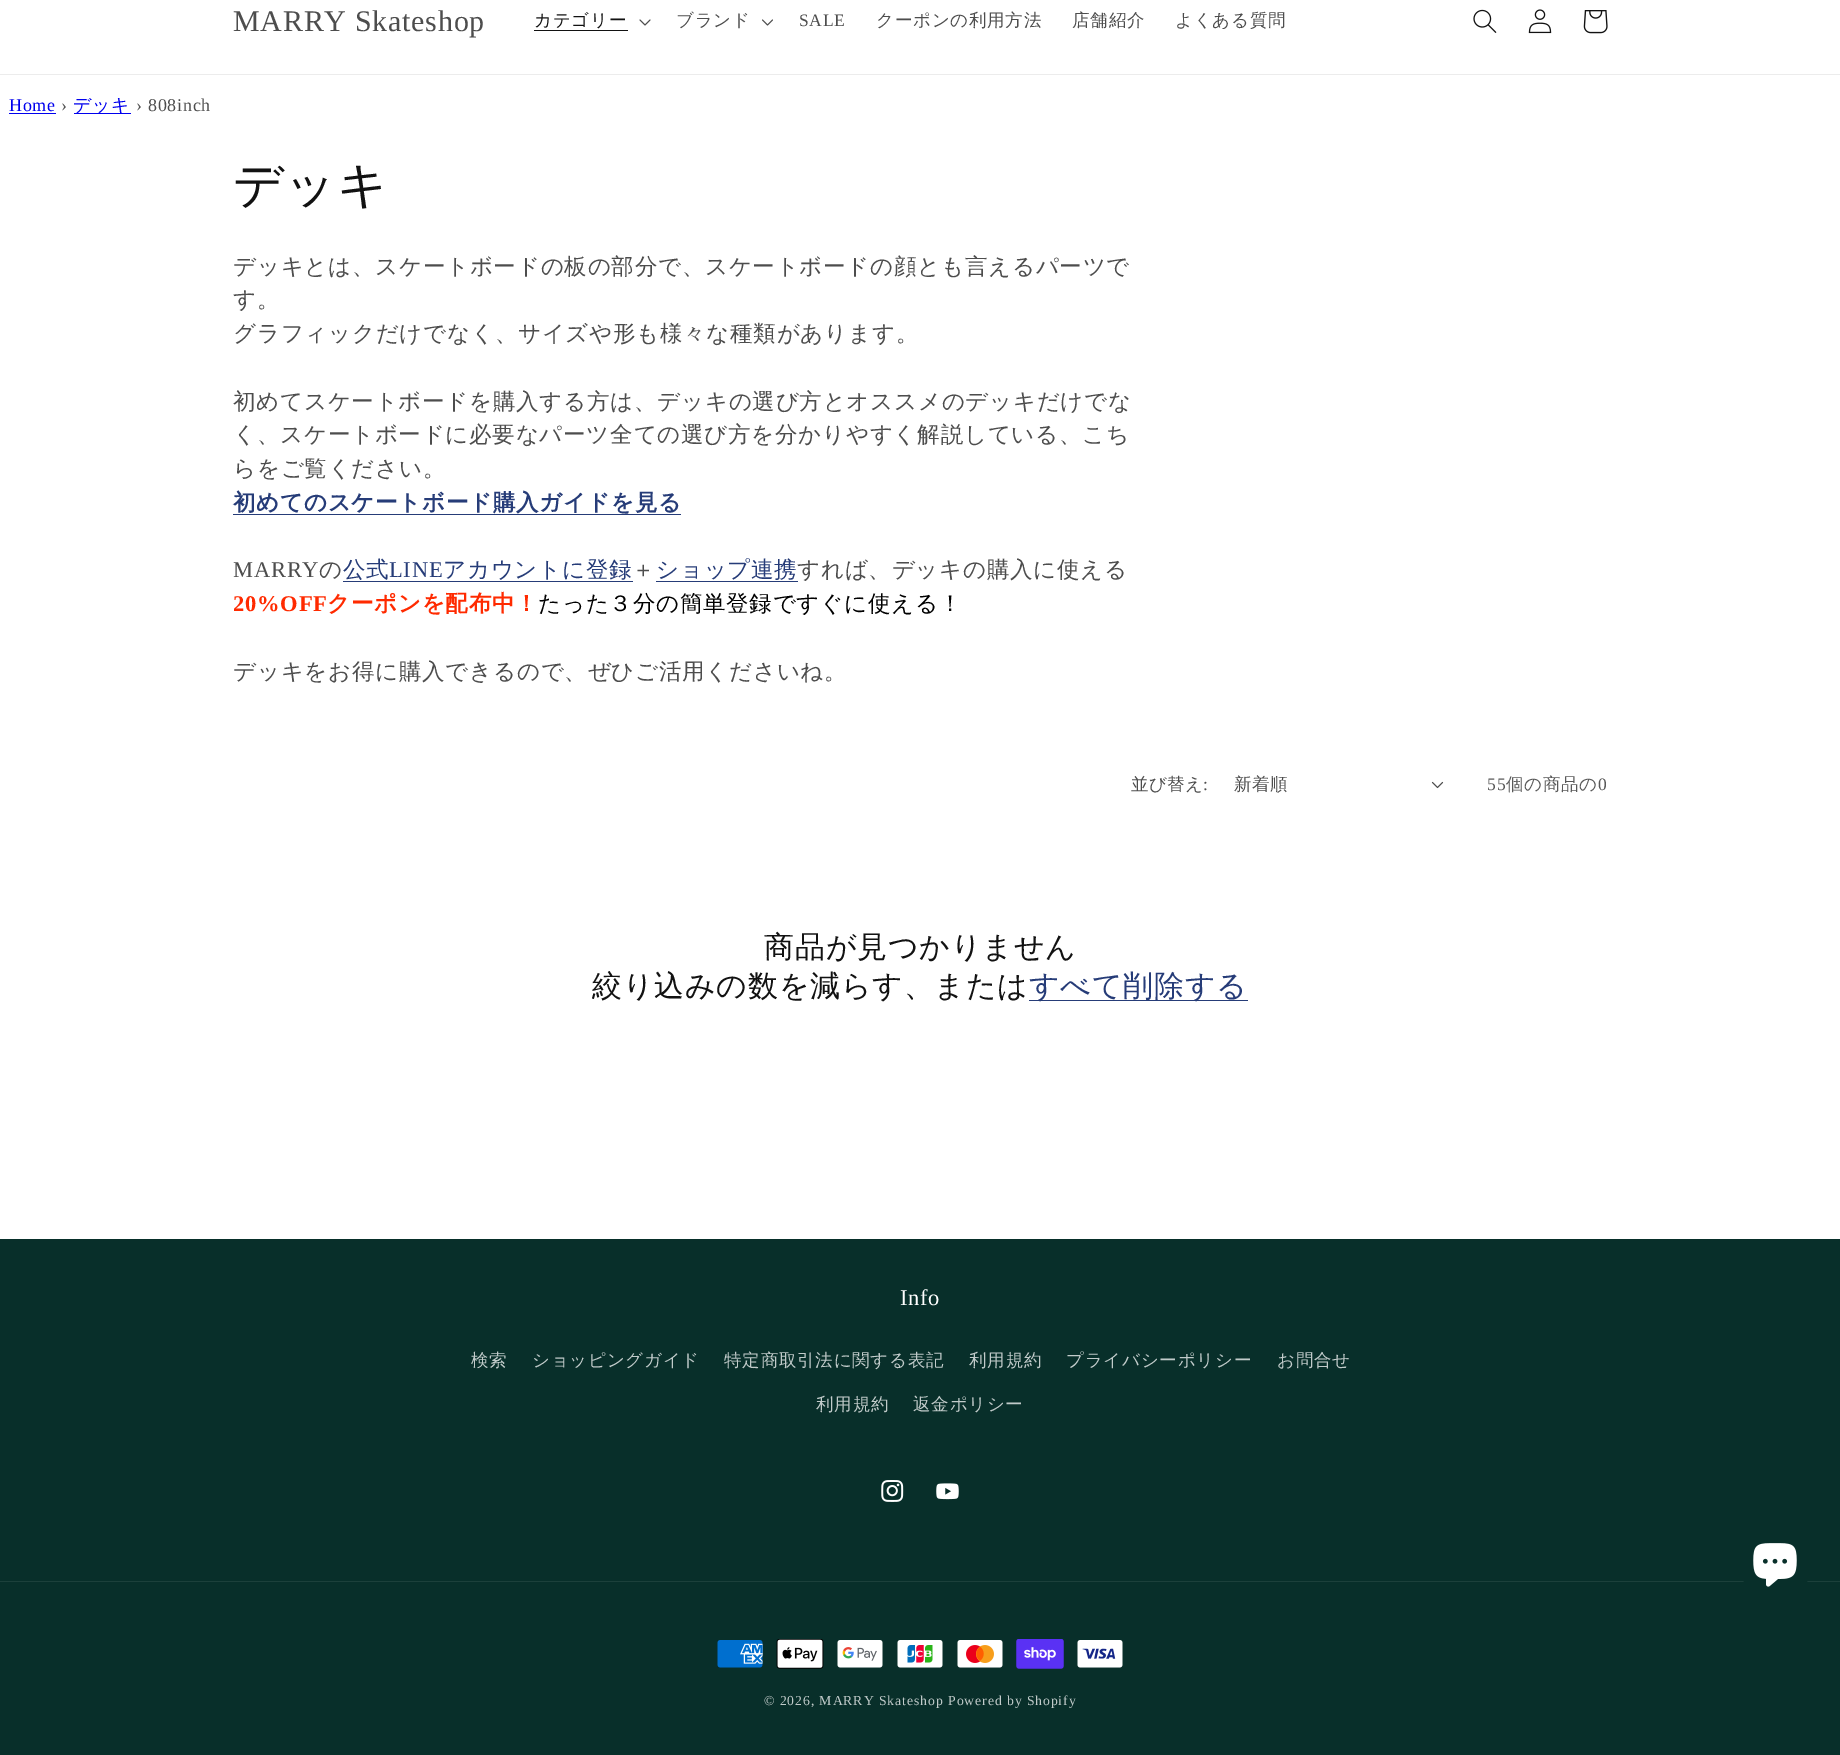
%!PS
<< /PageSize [1840 1755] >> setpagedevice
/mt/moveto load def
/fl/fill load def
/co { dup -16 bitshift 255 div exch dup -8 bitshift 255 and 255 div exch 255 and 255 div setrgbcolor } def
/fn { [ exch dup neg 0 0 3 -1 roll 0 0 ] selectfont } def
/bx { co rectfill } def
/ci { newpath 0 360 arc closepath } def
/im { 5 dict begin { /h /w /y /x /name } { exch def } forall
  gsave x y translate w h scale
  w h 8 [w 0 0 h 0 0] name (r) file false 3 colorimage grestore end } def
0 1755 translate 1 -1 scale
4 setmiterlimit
0 0 1840 1755 16#FFFFFF bx
0 74 1840 1 16#ECECEC bx
534 30 94 1 16#121212 bx
(media/1.raw) 639 19 12 7 im
(media/2.raw) 762 19 11 7 im
(media/3.raw) 1473 9 24 24 im
(media/4.raw) 1528 9 24 25 im
(media/5.raw) 1583 10 25 24 im
9 113 47 1 16#0000EE bx
74 113 57 1 16#0000EE bx
233 514 448 1 16#263C78 bx
343 581 290 1 16#263C78 bx
656 581 142 1 16#263C78 bx
(media/6.raw) 1431 781 13 8 im
1029 1000 219 1 16#263C78 bx
0 1239 1840 516 16#082F2A bx
(media/7.raw) 881 1480 23 22 im
(media/8.raw) 936 1483 23 17 im
0 1581 1840 1 16#1C403B bx
(media/9.raw) 717 1640 46 28 im
(media/10.raw) 776 1639 48 30 im
(media/11.raw) 837 1640 46 28 im
(media/12.raw) 897 1640 46 28 im
(media/13.raw) 957 1640 46 28 im
(media/14.raw) 1016 1639 48 30 im
(media/15.raw) 1077 1640 46 28 im
16#082F2A co
1775.5 1561.5 37.5 ci fl
(media/16.raw) 1753 1543 44 44 im
/LiberationSerif-Regular 30 fn
16#4D4D4D co
233 31 mt .75 0 (MARRY Skateshop) ashow
/WenQuanYiZenHei-Medium 17.5 fn
16#121212 co
534 26 mt .75 0 (カテゴリー) ashow
16#4D4D4D co
676 26 mt .75 0 (ブランド) ashow
/LiberationSerif-Regular 17.5 fn
799 26 mt .75 0 (SALE) ashow
/WenQuanYiZenHei-Medium 17.5 fn
876 26 mt .75 0 (クーポンの利用方法) ashow
1072 26 mt .75 0 (店舗紹介) ashow
1175 26 mt .75 0 (よくある質問) ashow
/LiberationSerif-Regular 18 fn
16#0000EE co
9 111 mt .75 0 (Home) ashow
16#4D4D4D co
61 111 mt .75 0 (›) ashow
/WenQuanYiZenHei-Medium 18 fn
16#0000EE co
73 111 mt .75 0 (デッキ) ashow
/LiberationSerif-Regular 18 fn
16#4D4D4D co
136 111 mt .75 0 (› 808inch) ashow
/WenQuanYiZenHei-Medium 50 fn
16#121212 co
233 202 mt .75 0 (デッキ) ashow
/WenQuanYiZenHei-Medium 22.5 fn
16#4D4D4D co
233 274 mt .75 0 (デッキとは、スケートボードの板の部分で、スケートボードの顔とも言えるパーツで) ashow
233 307 mt .75 0 (す。) ashow
233 341 mt .75 0 (グラフィックだけでなく、サイズや形も様々な種類があります。) ashow
233 409 mt .75 0 (初めてスケートボードを購入する方は、デッキの選び方とオススメのデッキだけでな) ashow
233 442 mt .75 0 (く、スケートボードに必要なパーツ全ての選び方を分かりやすく解説している、こち) ashow
233 476 mt .75 0 (らをご覧ください。) ashow
/WenQuanYiZenHei-Bold 22.5 fn
16#263C78 co
233 510 mt .75 0 (初めてのスケートボード購入ガイドを見る) ashow
/LiberationSerif-Regular 22.5 fn
16#4D4D4D co
233 577 mt .75 0 (MARRY) ashow
/WenQuanYiZenHei-Medium 22.5 fn
319 577 mt .75 0 (の) ashow
16#263C78 co
343 577 mt .75 0 (公式) ashow
/LiberationSerif-Regular 22.5 fn
389 577 mt .75 0 (LINE) ashow
/WenQuanYiZenHei-Medium 22.5 fn
443 577 mt .75 0 (アカウントに登録) ashow
16#4D4D4D co
632 577 mt .75 0 (＋) ashow
16#263C78 co
656 577 mt .75 0 (ショップ連携) ashow
16#4D4D4D co
797 577 mt .75 0 (すれば、デッキの購入に使える) ashow
/LiberationSerif-Bold 22.5 fn
16#FF2A00 co
233 611 mt .75 0 (20%OFF) ashow
/WenQuanYiZenHei-Bold 22.5 fn
327 611 mt .75 0 (クーポンを配布中！) ashow
/WenQuanYiZenHei-Medium 22.5 fn
16#000000 co
538 611 mt .75 0 (たった３分の簡単登録ですぐに使える！) ashow
16#4D4D4D co
233 679 mt .75 0 (デッキをお得に購入できるので、ぜひご活用くださいね。) ashow
/WenQuanYiZenHei-Medium 17.5 fn
1131 790 mt .5 0 (並び替え) ashow
/LiberationSerif-Regular 17.5 fn
1203 790 mt .5 0 (:) ashow
/WenQuanYiZenHei-Medium 17.5 fn
1234 790 mt .5 0 (新着順) ashow
/LiberationSerif-Regular 17.5 fn
16#595959 co
1487 790 mt .75 0 (55) ashow
/WenQuanYiZenHei-Medium 17.5 fn
1506 790 mt .75 0 (個の商品の) ashow
/LiberationSerif-Regular 17.5 fn
1598 790 mt .75 0 (0) ashow
/WenQuanYiZenHei-Medium 30 fn
16#121212 co
764 957 mt .75 0 (商品が見つかりません) ashow
592 996 mt .75 0 (絞り込みの数を減らす、または) ashow
16#263C78 co
1029 996 mt .75 0 (すべて削除する) ashow
/LiberationSerif-Regular 22.5 fn
16#FFFFFF co
900 1305 mt .75 0 (Info) ashow
/WenQuanYiZenHei-Medium 17.5 fn
16#C1CBCA co
471 1366 mt .75 0 (検索) ashow
532 1366 mt .75 0 (ショッピングガイド) ashow
724 1366 mt .75 0 (特定商取引法に関する表記) ashow
969 1366 mt .75 0 (利用規約) ashow
1066 1366 mt .75 0 (プライバシーポリシー) ashow
1277 1366 mt .75 0 (お問合せ) ashow
816 1410 mt .75 0 (利用規約) ashow
913 1410 mt .75 0 (返金ポリシー) ashow
/LiberationSerif-Regular 13.75 fn
764 1705 mt .9 0 (© 2026, MARRY Skateshop) ashow
948 1705 mt .9 0 (Powered by Shopify) ashow
showpage
